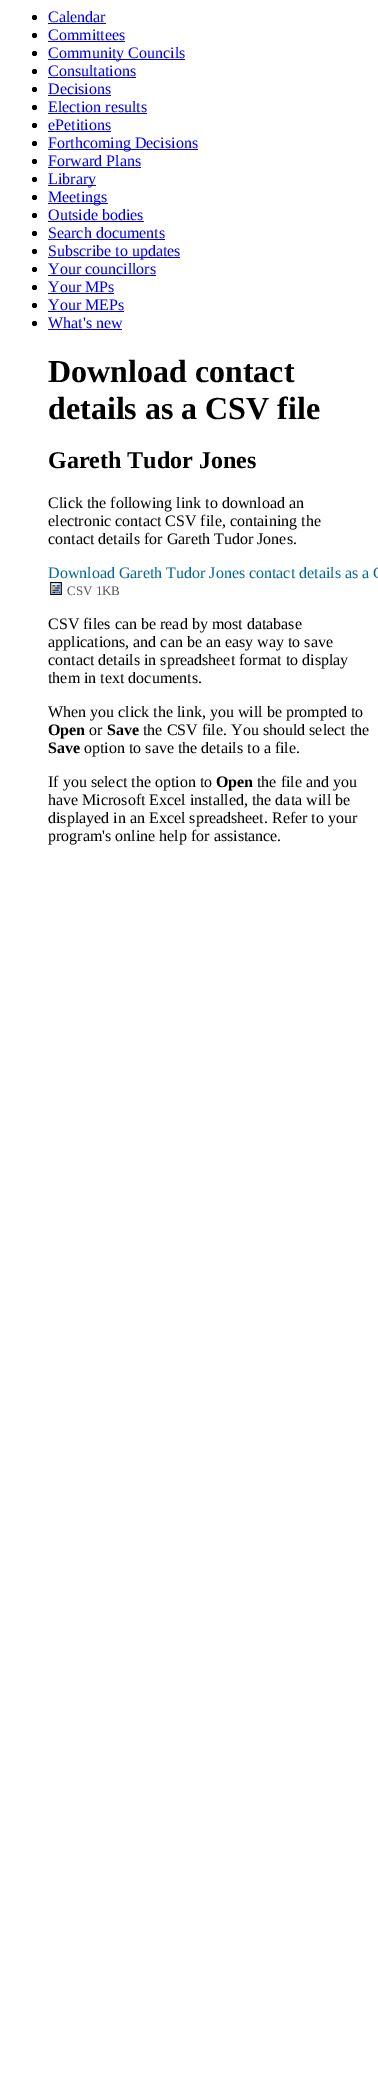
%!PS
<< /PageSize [378 2077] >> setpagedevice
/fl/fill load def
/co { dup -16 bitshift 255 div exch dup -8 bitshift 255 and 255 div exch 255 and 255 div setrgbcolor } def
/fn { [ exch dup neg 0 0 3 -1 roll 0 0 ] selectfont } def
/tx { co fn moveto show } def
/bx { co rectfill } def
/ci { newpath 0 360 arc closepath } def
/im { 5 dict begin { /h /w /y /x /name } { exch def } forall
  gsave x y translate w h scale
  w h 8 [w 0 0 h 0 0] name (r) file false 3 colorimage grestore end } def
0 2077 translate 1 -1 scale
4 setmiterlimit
0 0 378 2077 16#FFFFFF bx
16#000000 co
34.5 17.5 2.5 ci fl
48 23 58 1 16#0000EE bx
16#000000 co
34.5 35.5 2.5 ci fl
48 41 77 1 16#0000EE bx
16#000000 co
34.5 53.5 2.5 ci fl
48 59 137 1 16#0000EE bx
16#000000 co
34.5 71.5 2.5 ci fl
48 77 88 1 16#0000EE bx
16#000000 co
34.5 89.5 2.5 ci fl
48 95 63 1 16#0000EE bx
16#000000 co
34.5 107.5 2.5 ci fl
48 113 99 1 16#0000EE bx
16#000000 co
34.5 125.5 2.5 ci fl
48 131 63 1 16#0000EE bx
16#000000 co
34.5 143.5 2.5 ci fl
48 149 150 1 16#0000EE bx
16#000000 co
34.5 161.5 2.5 ci fl
48 167 93 1 16#0000EE bx
16#000000 co
34.5 179.5 2.5 ci fl
48 185 48 1 16#0000EE bx
16#000000 co
34.5 197.5 2.5 ci fl
48 203 60 1 16#0000EE bx
16#000000 co
34.5 215.5 2.5 ci fl
48 221 96 1 16#0000EE bx
16#000000 co
34.5 233.5 2.5 ci fl
48 239 117 1 16#0000EE bx
16#000000 co
34.5 251.5 2.5 ci fl
48 257 132 1 16#0000EE bx
16#000000 co
34.5 269.5 2.5 ci fl
48 275 108 1 16#0000EE bx
16#000000 co
34.5 287.5 2.5 ci fl
48 293 66 1 16#0000EE bx
16#000000 co
34.5 305.5 2.5 ci fl
48 311 76 1 16#0000EE bx
16#000000 co
34.5 323.5 2.5 ci fl
48 329 74 1 16#0000EE bx
(media/1.raw) 50 582 12 13 im
(Calendar) 48 22 /LiberationSerif-Regular 16 16#0000EE tx
(Committees) 48 40 /LiberationSerif-Regular 16 16#0000EE tx
(Community Councils) 48 58 /LiberationSerif-Regular 16 16#0000EE tx
(Consultations) 48 76 /LiberationSerif-Regular 16 16#0000EE tx
(Decisions) 48 94 /LiberationSerif-Regular 16 16#0000EE tx
(Election results) 48 112 /LiberationSerif-Regular 16 16#0000EE tx
(ePetitions) 48 130 /LiberationSerif-Regular 16 16#0000EE tx
(Forthcoming Decisions) 48 148 /LiberationSerif-Regular 16 16#0000EE tx
(Forward Plans) 48 166 /LiberationSerif-Regular 16 16#0000EE tx
(Library) 48 184 /LiberationSerif-Regular 16 16#0000EE tx
(Meetings) 48 202 /LiberationSerif-Regular 16 16#0000EE tx
(Outside bodies) 48 220 /LiberationSerif-Regular 16 16#0000EE tx
(Search documents) 48 238 /LiberationSerif-Regular 16 16#0000EE tx
(Subscribe to updates) 48 256 /LiberationSerif-Regular 16 16#0000EE tx
(Your councillors) 48 274 /LiberationSerif-Regular 16 16#0000EE tx
(Your MPs) 48 292 /LiberationSerif-Regular 16 16#0000EE tx
(Your MEPs) 48 310 /LiberationSerif-Regular 16 16#0000EE tx
(What's new) 48 328 /LiberationSerif-Regular 16 16#0000EE tx
(Download contact) 48 382 /LiberationSerif-Bold 32 16#000000 tx
(details as a CSV file) 48 419 /LiberationSerif-Bold 32 16#000000 tx
(Gareth Tudor Jones) 48 468 /LiberationSerif-Bold 24 16#000000 tx
(Click the following link to download an) 48 508 /LiberationSerif-Regular 16 16#000000 tx
(electronic contact CSV file, containing the) 48 526 /LiberationSerif-Regular 16 16#000000 tx
(contact details for Gareth Tudor Jones.) 48 544 /LiberationSerif-Regular 16 16#000000 tx
(Download Gareth Tudor Jones contact details as a C) 48 578 /LiberationSerif-Regular 16 16#006699 tx
(CSV 1KB) 67 595 /LiberationSerif-Regular 13 16#555555 tx
(CSV files can be read by most database) 48 629 /LiberationSerif-Regular 16 16#000000 tx
(applications, and can be an easy way to save) 48 647 /LiberationSerif-Regular 16 16#000000 tx
(contact details in spreadsheet format to display) 48 665 /LiberationSerif-Regular 16 16#000000 tx
(them in text documents.) 48 683 /LiberationSerif-Regular 16 16#000000 tx
(When you click the link, you will be prompted to) 48 717 /LiberationSerif-Regular 16 16#000000 tx
(Open) 48 735 /LiberationSerif-Bold 16 16#000000 tx
(or) 89 735 /LiberationSerif-Regular 16 16#000000 tx
(Save) 107 735 /LiberationSerif-Bold 16 16#000000 tx
(the CSV file. You should select the) 143 735 /LiberationSerif-Regular 16 16#000000 tx
(Save) 48 753 /LiberationSerif-Bold 16 16#000000 tx
(option to save the details to a file.) 84 753 /LiberationSerif-Regular 16 16#000000 tx
(If you select the option to) 48 787 /LiberationSerif-Regular 16 16#000000 tx
(Open) 216 787 /LiberationSerif-Bold 16 16#000000 tx
(the file and you) 257 787 /LiberationSerif-Regular 16 16#000000 tx
(have Microsoft Excel installed, the data will be) 48 805 /LiberationSerif-Regular 16 16#000000 tx
(displayed in an Excel spreadsheet. Refer to your) 48 823 /LiberationSerif-Regular 16 16#000000 tx
(program's online help for assistance.) 48 841 /LiberationSerif-Regular 16 16#000000 tx
showpage
